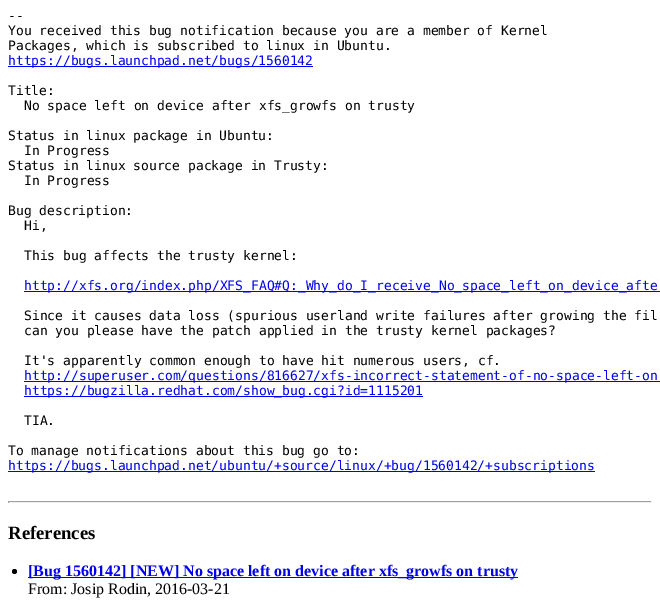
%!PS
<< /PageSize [660 603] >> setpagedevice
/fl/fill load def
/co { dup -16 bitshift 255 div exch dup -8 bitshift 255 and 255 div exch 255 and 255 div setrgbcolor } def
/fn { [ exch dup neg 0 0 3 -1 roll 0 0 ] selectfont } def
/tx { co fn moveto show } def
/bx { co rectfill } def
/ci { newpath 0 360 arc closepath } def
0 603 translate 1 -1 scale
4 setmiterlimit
0 0 660 603 16#FFFFFF bx
8 66 305 1 16#0000EE bx
24 291 636 1 16#0000EE bx
24 381 636 1 16#0000EE bx
24 396 399 1 16#0000EE bx
8 471 587 1 16#0000EE bx
8 501 644 1 16#9F9F9F bx
651 501 1 2 16#EEEEEE bx
8 502 644 1 16#EEEEEE bx
8 501 1 2 16#9F9F9F bx
16#000000 co
14.5 571.5 2.5 ci fl
28 577 490 1 16#0000EE bx
(--) 8 20 /DejaVuSansMono-Regular 13 16#000000 tx
(You received this bug notification because you are a member of Kernel) 8 35 /DejaVuSansMono-Regular 13 16#000000 tx
(Packages, which is subscribed to linux in Ubuntu.) 8 50 /DejaVuSansMono-Regular 13 16#000000 tx
(https://bugs.launchpad.net/bugs/1560142) 8 65 /DejaVuSansMono-Regular 13 16#0000EE tx
(Title:) 8 95 /DejaVuSansMono-Regular 13 16#000000 tx
(No space left on device after xfs_growfs on trusty) 24 110 /DejaVuSansMono-Regular 13 16#000000 tx
(Status in linux package in Ubuntu:) 8 140 /DejaVuSansMono-Regular 13 16#000000 tx
(In Progress) 24 155 /DejaVuSansMono-Regular 13 16#000000 tx
(Status in linux source package in Trusty:) 8 170 /DejaVuSansMono-Regular 13 16#000000 tx
(In Progress) 24 185 /DejaVuSansMono-Regular 13 16#000000 tx
(Bug description:) 8 215 /DejaVuSansMono-Regular 13 16#000000 tx
(Hi,) 24 230 /DejaVuSansMono-Regular 13 16#000000 tx
(This bug affects the trusty kernel:) 24 260 /DejaVuSansMono-Regular 13 16#000000 tx
(http://xfs.org/index.php/XFS_FAQ#Q:_Why_do_I_receive_No_space_left_on_device_afte) 24 290 /DejaVuSansMono-Regular 13 16#0000EE tx
(Since it causes data loss \(spurious userland write failures after growing the fil) 24 320 /DejaVuSansMono-Regular 13 16#000000 tx
(can you please have the patch applied in the trusty kernel packages?) 24 335 /DejaVuSansMono-Regular 13 16#000000 tx
(It's apparently common enough to have hit numerous users, cf.) 24 365 /DejaVuSansMono-Regular 13 16#000000 tx
(http://superuser.com/questions/816627/xfs-incorrect-statement-of-no-space-left-on) 24 380 /DejaVuSansMono-Regular 13 16#0000EE tx
(https://bugzilla.redhat.com/show_bug.cgi?id=1115201) 24 395 /DejaVuSansMono-Regular 13 16#0000EE tx
(TIA.) 24 425 /DejaVuSansMono-Regular 13 16#000000 tx
(To manage notifications about this bug go to:) 8 455 /DejaVuSansMono-Regular 13 16#000000 tx
(https://bugs.launchpad.net/ubuntu/+source/linux/+bug/1560142/+subscriptions) 8 470 /DejaVuSansMono-Regular 13 16#0000EE tx
(References) 8 539 /LiberationSerif-Bold 18.75 16#000000 tx
([Bug 1560142] [NEW] No space left on device after xfs_growfs on trusty) 28 576 /LiberationSerif-Bold 16 16#0000EE tx
(From: Josip Rodin, 2016-03-21) 28 594 /LiberationSerif-Regular 16 16#000000 tx
showpage
